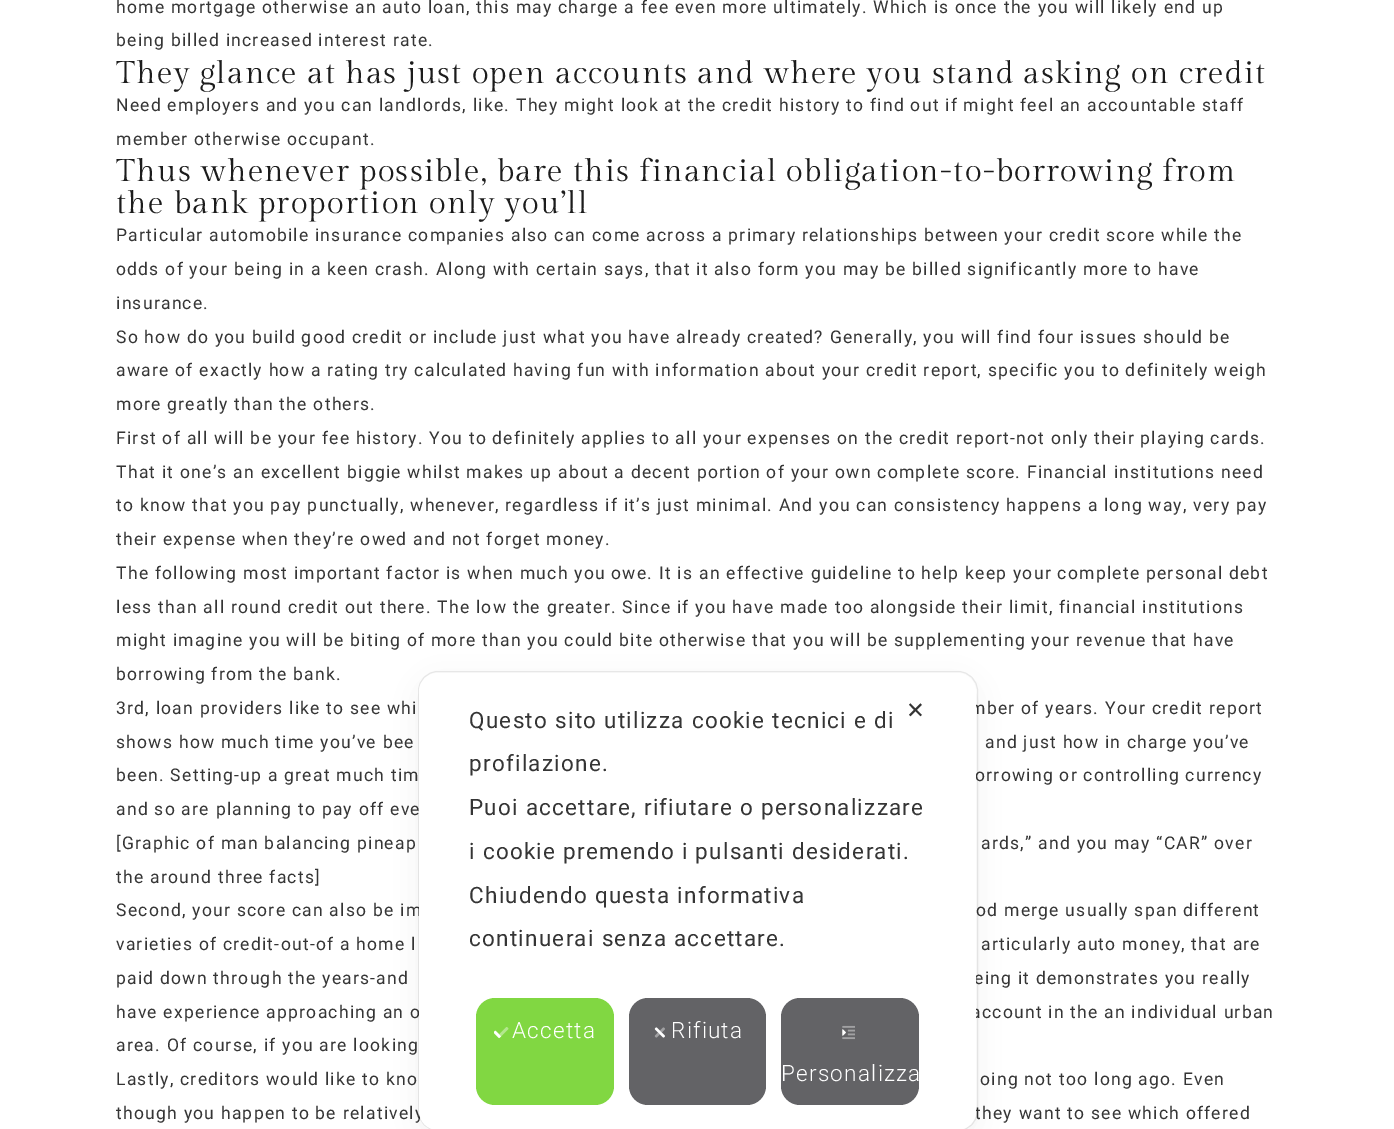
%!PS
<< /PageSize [1394 1129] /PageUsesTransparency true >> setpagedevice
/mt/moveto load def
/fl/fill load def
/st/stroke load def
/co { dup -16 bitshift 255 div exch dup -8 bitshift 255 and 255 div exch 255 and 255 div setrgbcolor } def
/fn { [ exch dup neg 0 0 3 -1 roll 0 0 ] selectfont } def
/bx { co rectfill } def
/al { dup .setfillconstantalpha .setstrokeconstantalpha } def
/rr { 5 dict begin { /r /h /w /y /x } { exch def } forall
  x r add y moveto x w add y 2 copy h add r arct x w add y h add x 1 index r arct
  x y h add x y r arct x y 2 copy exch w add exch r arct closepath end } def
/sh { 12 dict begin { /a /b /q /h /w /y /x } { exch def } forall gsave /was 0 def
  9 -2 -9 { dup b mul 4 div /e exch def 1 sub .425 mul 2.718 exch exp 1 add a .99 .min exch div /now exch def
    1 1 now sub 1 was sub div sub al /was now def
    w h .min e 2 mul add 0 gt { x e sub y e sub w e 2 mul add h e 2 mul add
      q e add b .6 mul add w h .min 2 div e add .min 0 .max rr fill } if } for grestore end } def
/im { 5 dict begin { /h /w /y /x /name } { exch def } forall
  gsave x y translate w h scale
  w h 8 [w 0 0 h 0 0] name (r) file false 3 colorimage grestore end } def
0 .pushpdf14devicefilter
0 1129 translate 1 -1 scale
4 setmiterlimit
0 0 1394 1129 16#FFFFFF bx
/Roboto-Regular 17.5 fn
16#353535 co
116 13 mt 1.25 0 (home mortgage otherwise an auto loan, this may charge a fee even more ultimately. Which is once the you will likely end up) ashow
116 46 mt 1.25 0 (being billed increased interest rate.) ashow
/GildaDisplay-Regular 31.25 fn
16#1C1C1C co
116 83 mt 1.25 0 (They glance at has just open accounts and where you stand asking on credit) ashow
/Roboto-Regular 17.5 fn
16#353535 co
116 111 mt 1.25 0 (Need employers and you can landlords, like. They might look at the credit history to find out if might feel an accountable staff) ashow
116 145 mt 1.25 0 (member otherwise occupant.) ashow
/GildaDisplay-Regular 31.25 fn
16#1C1C1C co
116 181 mt 1.25 0 (Thus whenever possible, bare this financial obligation-to-borrowing from) ashow
116 213 mt 1.25 0 (the bank proportion only you’ll) ashow
/Roboto-Regular 17.5 fn
16#353535 co
116 241 mt 1.25 0 (Particular automobile insurance companies also can come across a primary relationships between your credit score while the) ashow
116 275 mt 1.25 0 (odds of your being in a keen crash. Along with certain says, that it also form you may be billed significantly more to have) ashow
116 309 mt 1.25 0 (insurance.) ashow
116 343 mt 1.25 0 (So how do you build good credit or include just what you have already created? Generally, you will find four issues should be) ashow
116 376 mt 1.25 0 (aware of exactly how a rating try calculated having fun with information about your credit report, specific you to definitely weigh) ashow
116 410 mt 1.25 0 (more greatly than the others.) ashow
116 444 mt 1.25 0 (First of all will be your fee history. You to definitely applies to all your expenses on the credit report-not only their playing cards.) ashow
116 478 mt 1.25 0 (That it one’s an excellent biggie whilst makes up about a decent portion of your own complete score. Financial institutions need) ashow
116 511 mt 1.25 0 (to know that you pay punctually, whenever, regardless if it’s just minimal. And you can consistency happens a long way, very pay) ashow
116 545 mt 1.25 0 (their expense when they’re owed and not forget money.) ashow
116 579 mt 1.25 0 (The following most important factor is when much you owe. It is an effective guideline to help keep your complete personal debt) ashow
116 613 mt 1.25 0 (less than all round credit out there. The low the greater. Since if you have made too alongside their limit, financial institutions) ashow
116 646 mt 1.25 0 (might imagine you will be biting of more than you could bite otherwise that you will be supplementing your revenue that have) ashow
116 680 mt 1.25 0 (borrowing from the bank.) ashow
116 714 mt 1.25 0 (3rd, loan providers like to see whi) ashow
970 714 mt 1.25 0 (mber of years. Your credit report) ashow
116 748 mt 1.25 0 (shows how much time you’ve bee) ashow
985 748 mt 1.25 0 (and just how in charge you’ve) ashow
116 781 mt 1.25 0 (been. Setting-up a great much tim) ashow
975 781 mt 1.25 0 (orrowing or controlling currency) ashow
116 815 mt 1.25 0 (and so are planning to pay off eve) ashow
116 849 mt 1.25 0 ([Graphic of man balancing pineap) ashow
981 849 mt 1.25 0 (ards,” and you may “CAR” over) ashow
116 883 mt 1.25 0 (the around three facts]) ashow
116 916 mt 1.25 0 (Second, your score can also be im) ashow
976 916 mt 1.25 0 (od merge usually span different) ashow
116 950 mt 1.25 0 (varieties of credit-out-of a home l) ashow
981 950 mt 1.25 0 (articularly auto money, that are) ashow
116 984 mt 1.25 0 (paid down through the years-and) ashow
974 984 mt 1.25 0 (eing it demonstrates you really) ashow
116 1018 mt 1.25 0 (have experience approaching an o) ashow
971 1018 mt 1.25 0 (account in the an individual urban) ashow
116 1051 mt 1.25 0 (area. Of course, if you are looking) ashow
116 1085 mt 1.25 0 (Lastly, creditors would like to kno) ashow
980 1085 mt 1.25 0 (oing not too long ago. Even) ashow
116 1119 mt 1.25 0 (though you happen to be relatively) ashow
975 1119 mt 1.25 0 (they want to see which offered) ashow
0.08 al
16#000000 co
418.5 671.5 559 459 19.5 rr st
1 al
419 680 557 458 19 15 .05 sh
16#FFFFFF co
419 673 557 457 19 rr fl
/DejaVuSans-Regular 22.5 fn
16#353535 co
906 718 mt 1.25 0 (✕) ashow
/Roboto-Regular 22.5 fn
469 728 mt 1.25 0 (Questo sito utilizza cookie tecnici e di) ashow
469 771 mt 1.25 0 (profilazione.) ashow
469 815 mt 1.25 0 (Puoi accettare, rifiutare o personalizzare) ashow
469 859 mt 1.25 0 (i cookie premendo i pulsanti desiderati.) ashow
469 903 mt 1.25 0 (Chiudendo questa informativa) ashow
469 946 mt 1.25 0 (continuerai senza accettare.) ashow
16#81D742 co
476 998 138 107 19 rr fl
(media/1.raw) 494 1027 15 12 im
/Roboto-Light 22.5 fn
16#FFFFFF co
512 1038 mt 1.25 0 (Accetta) ashow
16#636366 co
629 998 137 107 19 rr fl
(media/2.raw) 654 1027 11 11 im
16#FFFFFF co
671 1038 mt 1.25 0 (Rifiuta) ashow
16#636366 co
781 998 138 107 19 rr fl
(media/3.raw) 842 1025 13 15 im
16#FFFFFF co
781 1081 mt 1.25 0 (Personalizza) ashow
.poppdf14devicefilter showpage
